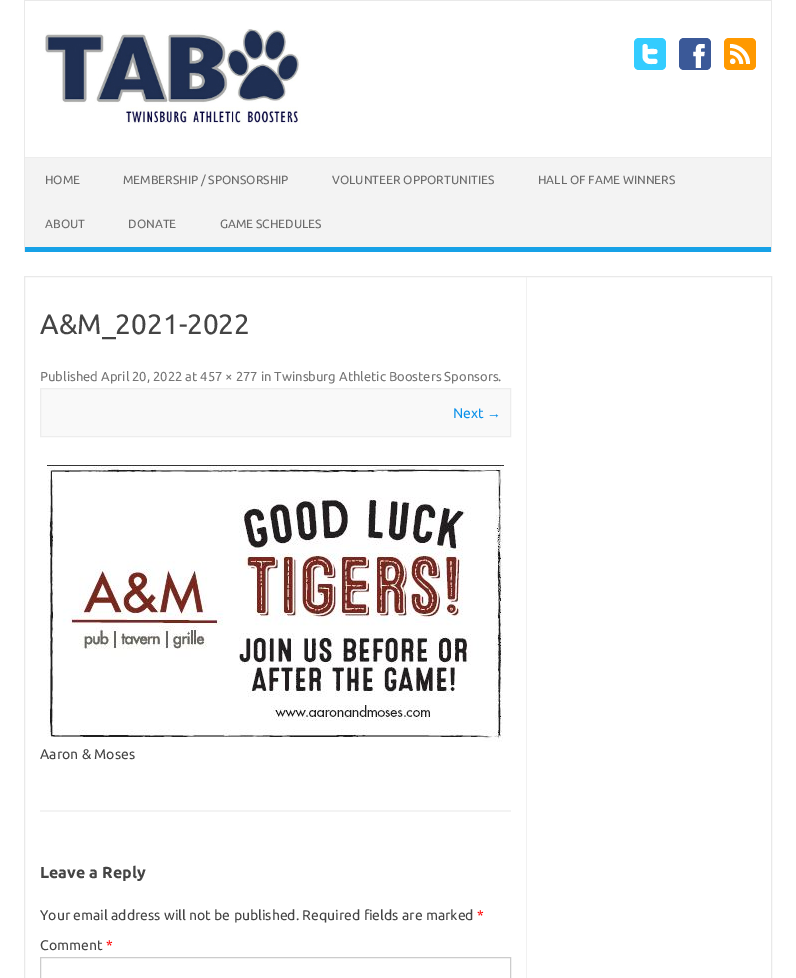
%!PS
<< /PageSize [796 978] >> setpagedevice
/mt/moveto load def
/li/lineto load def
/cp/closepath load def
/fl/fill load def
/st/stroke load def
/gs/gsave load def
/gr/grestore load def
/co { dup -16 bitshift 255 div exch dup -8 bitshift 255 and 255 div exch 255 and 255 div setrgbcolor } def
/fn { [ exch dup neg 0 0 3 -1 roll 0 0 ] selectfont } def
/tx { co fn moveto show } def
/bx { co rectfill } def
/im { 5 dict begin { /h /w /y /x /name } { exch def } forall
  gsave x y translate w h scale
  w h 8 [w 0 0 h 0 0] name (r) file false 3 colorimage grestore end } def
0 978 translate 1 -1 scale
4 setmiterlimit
0 0 796 978 16#FFFFFF bx
24 0 748 1 16#E9E9E9 bx
771 0 1 252 16#E9E9E9 bx
24 0 1 252 16#E9E9E9 bx
(media/1.raw) 45 29 256 95 im
(media/2.raw) 634 38 32 32 im
(media/3.raw) 679 38 32 32 im
(media/4.raw) 724 38 32 32 im
25 158 746 89 16#F3F3F3 bx
25 157 746 1 16#EDEDED bx
25 247 746 5 16#16A1E7 bx
16#E9E9E9 co
24.5 276.5 747 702 rectstroke
526 277 1 701 16#F1F1F1 bx
40 810 471 2 16#F3F3F3 bx
16#F9F9F9 co
40.5 388.5 mt 510.5 388.5 li 510.5 436.5 li 40.5 436.5 li cp gs fl gr
16#EDEDED co
st
(media/5.raw) 47 465 457 277 im
16#CCCCCC co
40.5 957.5 470 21 rectstroke
(HOME) 45 184 /Ubuntu-Regular 12 16#6A6A6A tx
(MEMBERSHIP / SPONSORSHIP) 123 184 /Ubuntu-Regular 12 16#6A6A6A tx
(VOLUNTEER OPPORTUNITIES) 332 184 /Ubuntu-Regular 12 16#6A6A6A tx
(HALL OF FAME WINNERS) 538 184 /Ubuntu-Regular 12 16#6A6A6A tx
(ABOUT) 45 228 /Ubuntu-Regular 12 16#6A6A6A tx
(DONATE) 128 228 /Ubuntu-Regular 12 16#6A6A6A tx
(GAME SCHEDULES) 220 228 /Ubuntu-Regular 12 16#6A6A6A tx
(A&M_2021-2022) 40 334 /Ubuntu-Regular 28 16#444444 tx
(Published April 20, 2022 at 457 × 277 in Twinsburg Athletic Boosters Sponsors.) 40 381 /Ubuntu-Regular 13 16#757575 tx
(Next) 453 418 /Ubuntu-Regular 14 16#0B91EA tx
(→) 487 418 /LiberationSans-Regular 14 16#0B91EA tx
(Aaron & Moses) 40 759 /Ubuntu-Regular 14 16#444444 tx
(Leave a Reply) 40 878 /Ubuntu-Bold 16 16#444444 tx
(Your email address will not be published. Required fields are marked) 40 920 /Ubuntu-Regular 14 16#444444 tx
(*) 477 920 /Ubuntu-Regular 14 16#FF0000 tx
(Comment) 40 950 /Ubuntu-Regular 14 16#444444 tx
(*) 106 950 /Ubuntu-Regular 14 16#FF0000 tx
showpage
